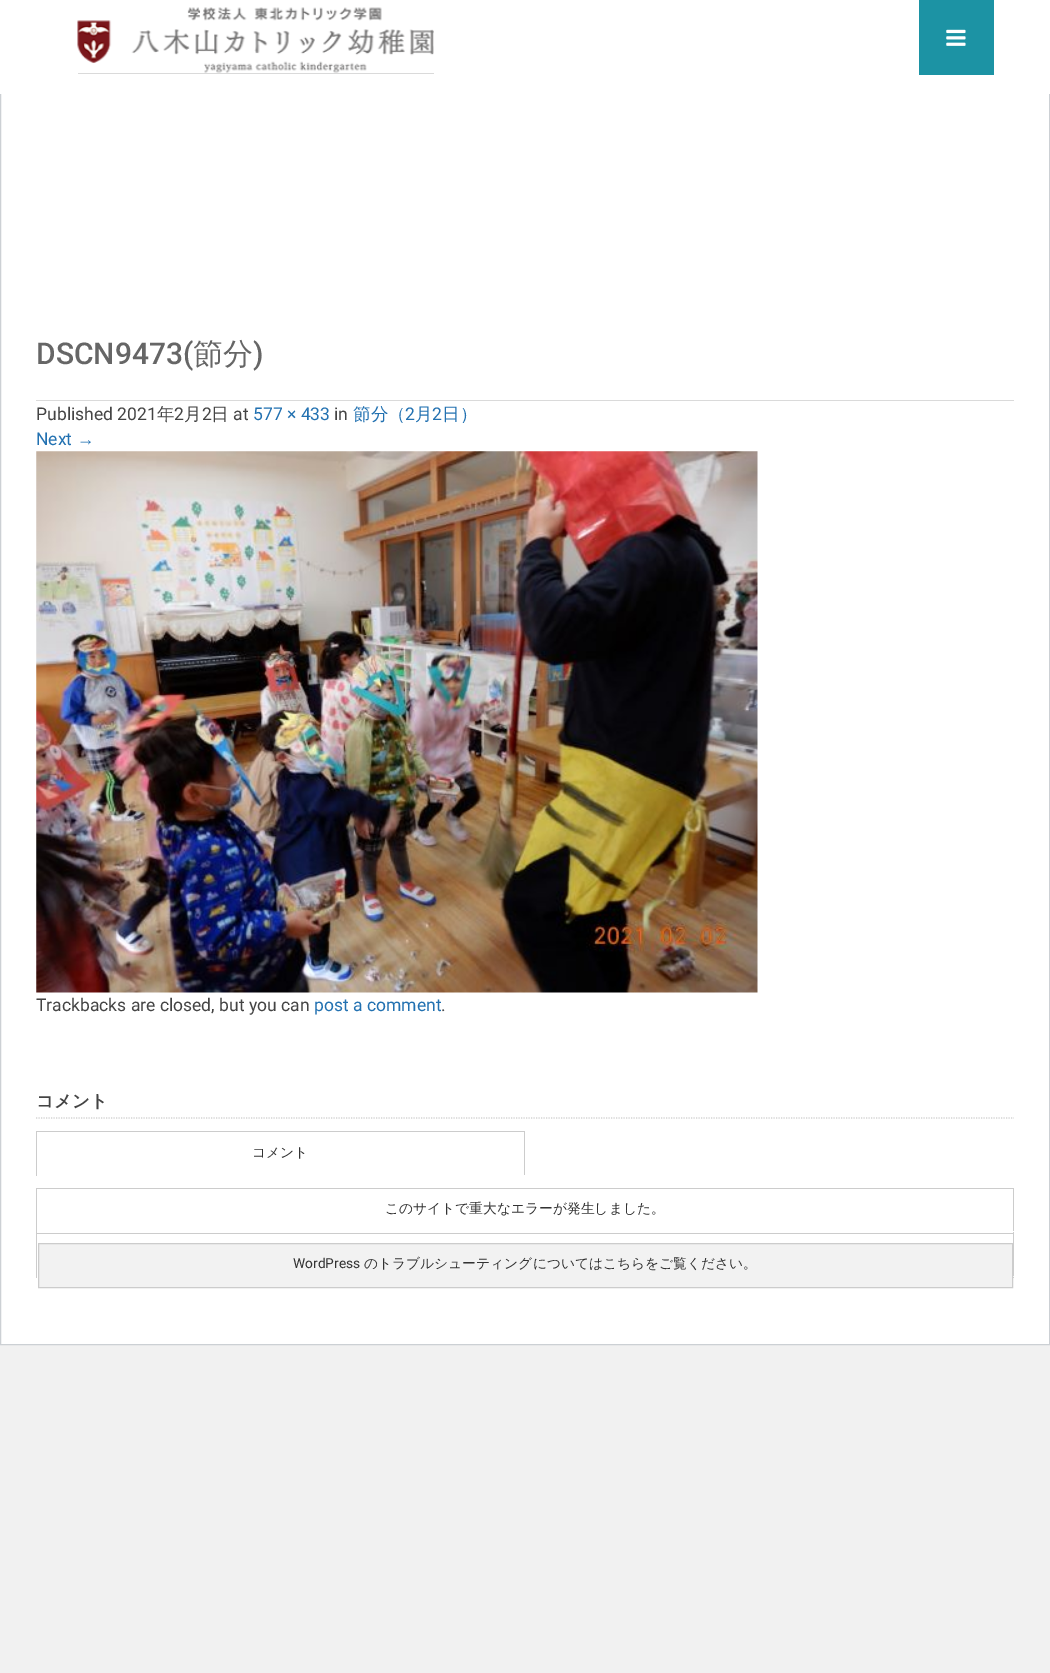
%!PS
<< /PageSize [1050 1673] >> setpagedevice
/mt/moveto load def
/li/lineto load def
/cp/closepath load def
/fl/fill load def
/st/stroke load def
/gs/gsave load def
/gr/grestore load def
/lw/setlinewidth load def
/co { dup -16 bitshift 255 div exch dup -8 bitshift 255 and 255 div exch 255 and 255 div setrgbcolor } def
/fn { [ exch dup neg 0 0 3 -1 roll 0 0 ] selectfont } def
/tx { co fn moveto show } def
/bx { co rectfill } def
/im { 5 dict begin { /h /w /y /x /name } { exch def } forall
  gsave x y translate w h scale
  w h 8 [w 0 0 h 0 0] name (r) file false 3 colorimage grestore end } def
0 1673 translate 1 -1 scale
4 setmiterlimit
0 0 1050 1673 16#F1F1F1 bx
1 94 1048 1250 16#FFFFFF bx
16#CCD0D4 co
.5 63.5 1049 1281 rectstroke
0 0 1050 94 16#FFFFFF bx
78 73 356 1 16#DADADA bx
(media/1.raw) 77 7 357 66 im
919 0 75 75 16#1C93A4 bx
(media/2.raw) 946 29 20 17 im
36 400 978 1 16#DADADA bx
(media/3.raw) 36 451 722 542 im
16#D3D3D3 co
1.2 lw
[1.25 1.25] 0 setdash
36 1118 mt 1014 1118 li st
36 1131 489 1 16#CCCCCC bx
524 1131 1 45 16#CCCCCC bx
524 1175 1 1 16#FFFFFF bx
36 1131 1 45 16#CCCCCC bx
36 1188 978 1 16#CCCCCC bx
1013 1188 1 45 16#CCCCCC bx
1013 1231 1 1 16#FFFFFF bx
36 1188 1 45 16#CCCCCC bx
36 1233 978 1 16#CCCCCC bx
1013 1233 1 45 16#CCCCCC bx
1013 1276 1 1 16#FFFFFF bx
36 1233 1 45 16#CCCCCC bx
16#F2F2F2 co
38.5 1243.5 mt 1012.5 1243.5 li 1012.5 1287.5 li 38.5 1287.5 li cp gs fl gr
16#CCCCCC co
1 lw
[] 0 setdash
st
(DSCN9473\() 36 364 /Roboto-Medium 30 16#666666 tx
(節分) 193 364 /WenQuanYiZenHei-Medium 30 16#666666 tx
(\)) 253 364 /Roboto-Medium 30 16#666666 tx
(Published 2021) 36 420 /Roboto-Regular 17.5 16#444444 tx
(年) 157 420 /WenQuanYiZenHei-Medium 17.5 16#444444 tx
(2) 174 420 /Roboto-Regular 17.5 16#444444 tx
(月) 184 420 /WenQuanYiZenHei-Medium 17.5 16#444444 tx
(2) 202 420 /Roboto-Regular 17.5 16#444444 tx
(日) 211 420 /WenQuanYiZenHei-Medium 17.5 16#444444 tx
(at) 233 420 /Roboto-Regular 17.5 16#444444 tx
(577 × 433) 253 420 /Roboto-Regular 17.5 16#2271B1 tx
(in) 334 420 /Roboto-Regular 17.5 16#444444 tx
(節分（) 353 420 /WenQuanYiZenHei-Medium 17.5 16#2271B1 tx
(2) 405 420 /Roboto-Regular 17.5 16#2271B1 tx
(月) 415 420 /WenQuanYiZenHei-Medium 17.5 16#2271B1 tx
(2) 432 420 /Roboto-Regular 17.5 16#2271B1 tx
(日）) 442 420 /WenQuanYiZenHei-Medium 17.5 16#2271B1 tx
(Next) 36 445 /Roboto-Regular 17.5 16#2271B1 tx
(→) 77 445 /LiberationSans-Regular 17.5 16#2271B1 tx
(Trackbacks are closed, but you can) 36 1011 /Roboto-Regular 17.5 16#444444 tx
(post a comment) 314 1011 /Roboto-Regular 17.5 16#2271B1 tx
(.) 441 1011 /Roboto-Regular 17.5 16#444444 tx
(コメント) 36 1107 /WenQuanYiZenHei-Bold 17.5 16#444444 tx
(コメント) 252 1157 /WenQuanYiZenHei-Medium 13.75 16#333333 tx
(このサイトで重大なエラーが発生しました。) 385 1213 /WenQuanYiZenHei-Medium 13.75 16#333333 tx
(WordPress) 293 1268 /Roboto-Regular 13.75 16#333333 tx
(のトラブルシューティングについてはこちらをご覧ください。) 364 1268 /WenQuanYiZenHei-Medium 13.75 16#333333 tx
showpage
